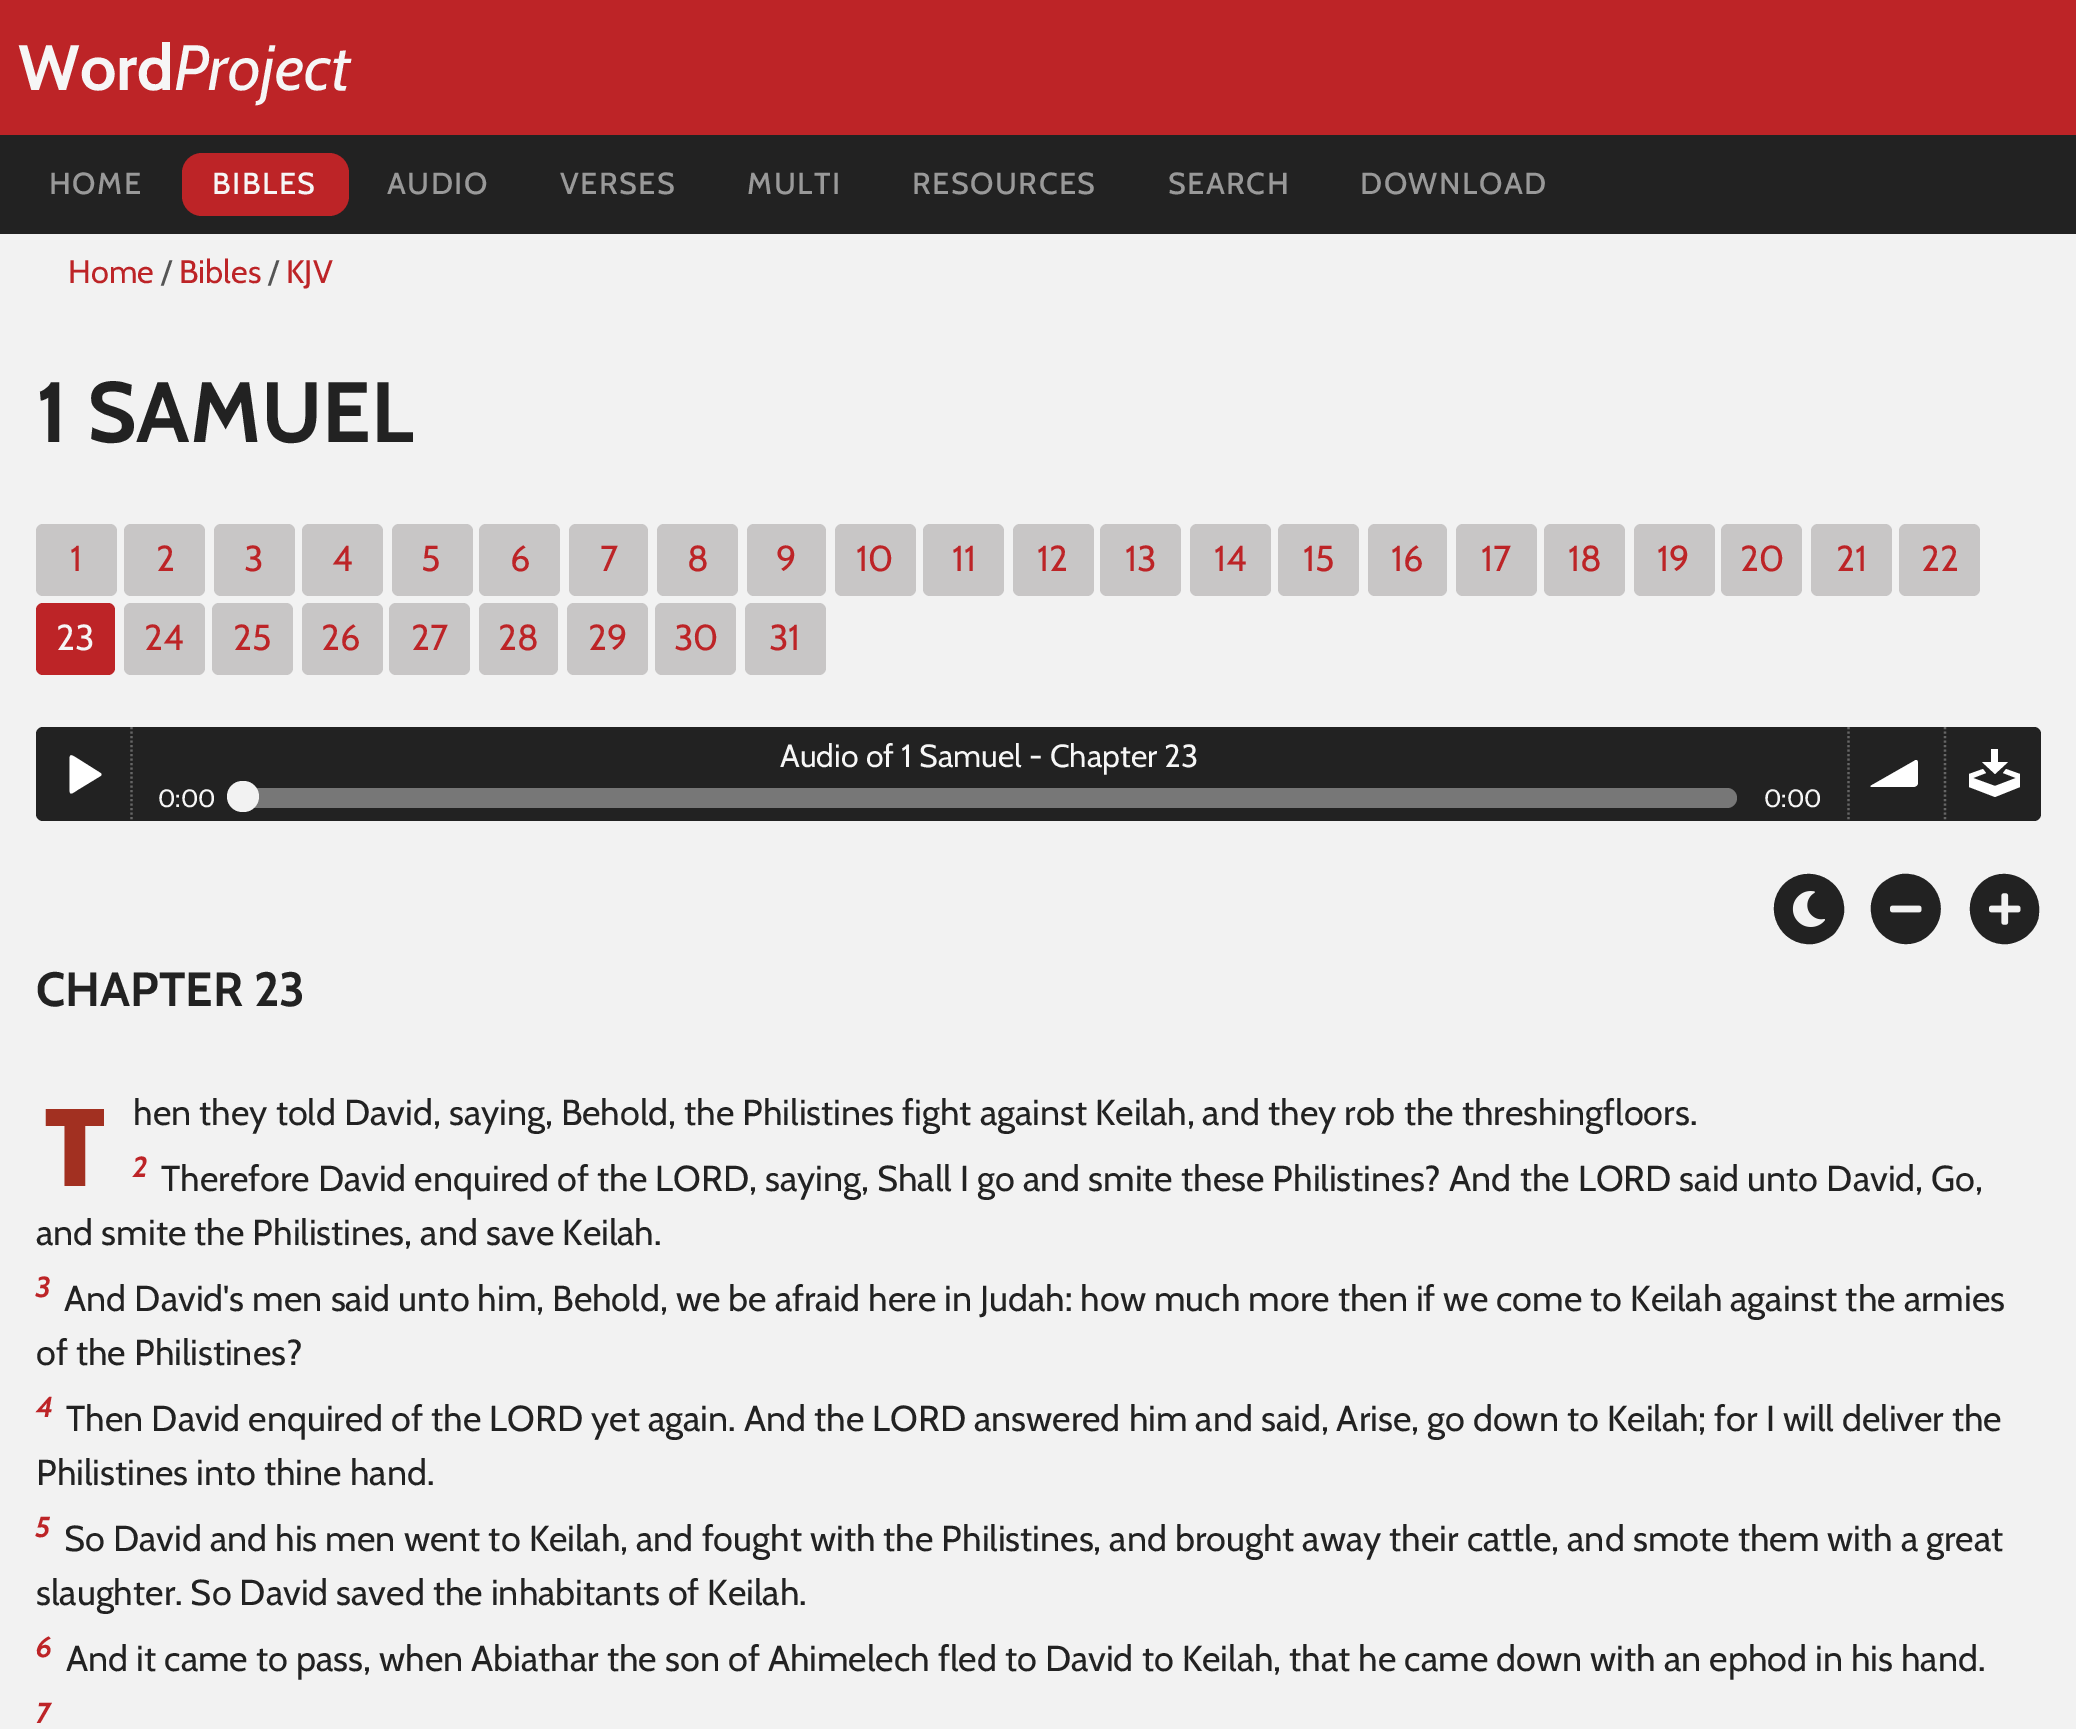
%!PS
<< /PageSize [2076 1729] >> setpagedevice
/mt/moveto load def
/li/lineto load def
/ct/curveto load def
/cp/closepath load def
/fl/fill load def
/st/stroke load def
/lw/setlinewidth load def
/co { dup -16 bitshift 255 div exch dup -8 bitshift 255 and 255 div exch 255 and 255 div setrgbcolor } def
/fn { [ exch dup neg 0 0 3 -1 roll 0 0 ] selectfont } def
/tx { co fn moveto show } def
/bx { co rectfill } def
/rr { 5 dict begin { /r /h /w /y /x } { exch def } forall
  x r add y moveto x w add y 2 copy h add r arct x w add y h add x 1 index r arct
  x y h add x y r arct x y 2 copy exch w add exch r arct closepath end } def
/im { 5 dict begin { /h /w /y /x /name } { exch def } forall
  gsave x y translate w h scale
  w h 8 [w 0 0 h 0 0] name (r) file false 3 colorimage grestore end } def
0 1729 translate 1 -1 scale
4 setmiterlimit
0 0 2076 1729 16#F2F2F2 bx
0 0 2076 135 16#BD2427 bx
0 135 2076 99 16#222222 bx
16#BD2427 co
182 153 167 63 20 rr fl
16#C8C6C6 co
36 524 81 72 7 rr fl
124 524 81 72 7 rr fl
214 524 81 72 7 rr fl
302 524 81 72 7 rr fl
392 524 81 72 7 rr fl
479 524 81 72 7 rr fl
569 524 79 72 7 rr fl
657 524 81 72 7 rr fl
747 524 79 72 7 rr fl
835 524 81 72 7 rr fl
923 524 81 72 7 rr fl
1013 524 81 72 7 rr fl
1100 524 81 72 7 rr fl
1190 524 81 72 7 rr fl
1278 524 81 72 7 rr fl
1368 524 79 72 7 rr fl
1456 524 81 72 7 rr fl
1544 524 81 72 7 rr fl
1634 524 81 72 7 rr fl
1721 524 81 72 7 rr fl
1811 524 81 72 7 rr fl
1899 524 81 72 7 rr fl
16#BD2427 co
36 603 79 72 7 rr fl
16#C8C6C6 co
124 603 81 72 7 rr fl
212 603 81 72 7 rr fl
302 603 81 72 7 rr fl
389 603 81 72 7 rr fl
479 603 79 72 7 rr fl
567 603 81 72 7 rr fl
655 603 81 72 7 rr fl
745 603 81 72 7 rr fl
16#222222 co
36 727 2005 94 7 rr fl
16#666666 co
2.2 lw
[2.25 2.25] 0 setdash
131.5 727 mt 131.5 821 li st
16#FFFFFF co
100.5 773 mt 77.5 758.5 li 69.5 753.5 69.5 753.5 69.5 763.5 ct 69.5 785.5 li 69.5 795 69.5 795.5 77.5 790 ct 100.5 776 li 102 775 101.5 773.5 100.5 773 ct cp fl
16#666666 co
1848.5 727 mt 1848.5 821 li st
16#777777 co
243 788 1494 20 10 rr fl
16#F2F2F2 co
227 781 32 31 15.5 rr fl
16#666666 co
1945 727 mt 1945 821 li st
16#FFFFFF co
1918 783 mt 1918 785 1916 787 1913 787 ct 1872 787 li 1870 787 1870 786 1872 785 ct 1914 761 li 1916 759 1918 760 1918 763 ct cp fl
1995 774 mt 2008 762 li 1998 762 li 1998 749 li 1991 749 li 1991 762 li 1982 762 li cp 2006 769 mt 2003 773 li 2016 778 li 1995 786 li 1973 778 li 1986 773 li 1983 769 li 1969 774 li 1969 787 li 1995 797 li 2020 787 li 2020 774 li cp fl
16#222222 co
1784 884 mt 1808 861 1847 880 1844 913 ct 1843 921 1839 928 1834 934 ct 1828 939 1821 943 1813 944 ct 1780 947 1761 908 1784 884 ct cp fl
(media/1.raw) 1792 891 33 36 im
1881 884 mt 1887 879 1894 875 1902 874 ct 1935 871 1954 910 1930 934 ct 1907 957 1868 938 1871 905 ct 1872 897 1875 890 1881 884 ct cp fl
(media/2.raw) 1890 905 32 8 im
1980 884 mt 2003 861 2042 880 2039 913 ct 2039 921 2035 928 2029 934 ct 2024 939 2016 943 2008 944 ct 1976 947 1957 908 1980 884 ct cp fl
(media/3.raw) 1989 893 32 32 im
(Word) 18 90 /Cabin-Bold 64 16#F6F6F6 tx
(Project) 174 90 /Cabin-Italic 64 16#F6F6F6 tx
/Cabin-Medium 30.5 fn
16#999999 co
49 194 mt 1.5 0 (HOME) ashow
16#F6F6F6 co
212 194 mt 1.5 0 (BIBLES) ashow
16#999999 co
387 194 mt 1.5 0 (AUDIO) ashow
560 194 mt 1.5 0 (VERSES) ashow
747 194 mt 1.5 0 (MULTI) ashow
912 194 mt 1.5 0 (RESOURCES) ashow
1168 194 mt 1.5 0 (SEARCH) ashow
1360 194 mt 1.5 0 (DOWNLOAD) ashow
(Home) 68 283 /Cabin-Regular 32.5 16#BD2427 tx
(/) 161 283 /Cabin-Regular 32.5 16#555555 tx
(Bibles) 179 283 /Cabin-Regular 32.5 16#BD2427 tx
(/) 268 283 /Cabin-Regular 32.5 16#555555 tx
(KJV) 286 283 /Cabin-Regular 32.5 16#BD2427 tx
(1 SAMUEL) 36 442 /Cabin-Bold 85.5 16#222222 tx
(1) 70 571 /Cabin-Regular 36 16#BD2427 tx
(2) 156 571 /Cabin-Regular 36 16#BD2427 tx
(3) 244 571 /Cabin-Regular 36 16#BD2427 tx
(4) 332 571 /Cabin-Regular 36 16#BD2427 tx
(5) 421 571 /Cabin-Regular 36 16#BD2427 tx
(6) 510 571 /Cabin-Regular 36 16#BD2427 tx
(7) 600 571 /Cabin-Regular 36 16#BD2427 tx
(8) 687 571 /Cabin-Regular 36 16#BD2427 tx
(9) 776 571 /Cabin-Regular 36 16#BD2427 tx
(10) 856 571 /Cabin-Regular 36 16#BD2427 tx
(11) 952 571 /Cabin-Regular 36 16#BD2427 tx
(12) 1037 571 /Cabin-Regular 36 16#BD2427 tx
(13) 1125 571 /Cabin-Regular 36 16#BD2427 tx
(14) 1214 571 /Cabin-Regular 36 16#BD2427 tx
(15) 1303 571 /Cabin-Regular 36 16#BD2427 tx
(16) 1391 571 /Cabin-Regular 36 16#BD2427 tx
(17) 1481 571 /Cabin-Regular 36 16#BD2427 tx
(18) 1568 571 /Cabin-Regular 36 16#BD2427 tx
(19) 1657 571 /Cabin-Regular 36 16#BD2427 tx
(20) 1740 571 /Cabin-Regular 36 16#BD2427 tx
(21) 1836 571 /Cabin-Regular 36 16#BD2427 tx
(22) 1921 571 /Cabin-Regular 36 16#BD2427 tx
(23) 56 650 /Cabin-Regular 36 16#F6F6F6 tx
(24) 144 650 /Cabin-Regular 36 16#BD2427 tx
(25) 233 650 /Cabin-Regular 36 16#BD2427 tx
(26) 321 650 /Cabin-Regular 36 16#BD2427 tx
(27) 411 650 /Cabin-Regular 36 16#BD2427 tx
(28) 498 650 /Cabin-Regular 36 16#BD2427 tx
(29) 588 650 /Cabin-Regular 36 16#BD2427 tx
(30) 674 650 /Cabin-Regular 36 16#BD2427 tx
(31) 769 650 /Cabin-Regular 36 16#BD2427 tx
(Audio of 1 Samuel - Chapter 23) 780 767 /Cabin-Regular 32 16#F6F6F6 tx
(0:00) 158 807 /Cabin-Regular 25 16#F6F6F6 tx
(0:00) 1764 807 /Cabin-Regular 25 16#F6F6F6 tx
(CHAPTER 23) 36 1006 /Cabin-Bold 48 16#222222 tx
(T) 43 1186 /NotoSans-Black 108 16#A23021 tx
(hen they told David, saying, Behold, the Philistines fight against Keilah, and they rob the threshingfloors.) 133 1125 /Cabin-Regular 36 16#222222 tx
(2) 133 1177 /Cabin-BoldItalic 29 16#BD2427 tx
(Therefore David enquired of the LORD, saying, Shall I go and smite these Philistines? And the LORD said unto David, Go,) 161 1191 /Cabin-Regular 36 16#222222 tx
(and smite the Philistines, and save Keilah.) 36 1245 /Cabin-Regular 36 16#222222 tx
(3) 36 1297 /Cabin-BoldItalic 29 16#BD2427 tx
(And David's men said unto him, Behold, we be afraid here in Judah: how much more then if we come to Keilah against the armies) 64 1311 /Cabin-Regular 36 16#222222 tx
(of the Philistines?) 36 1365 /Cabin-Regular 36 16#222222 tx
(4) 36 1417 /Cabin-BoldItalic 29 16#BD2427 tx
(Then David enquired of the LORD yet again. And the LORD answered him and said, Arise, go down to Keilah; for I will deliver the) 66 1431 /Cabin-Regular 36 16#222222 tx
(Philistines into thine hand.) 36 1485 /Cabin-Regular 36 16#222222 tx
(5) 36 1537 /Cabin-BoldItalic 29 16#BD2427 tx
(So David and his men went to Keilah, and fought with the Philistines, and brought away their cattle, and smote them with a great) 64 1551 /Cabin-Regular 36 16#222222 tx
(slaughter. So David saved the inhabitants of Keilah.) 36 1605 /Cabin-Regular 36 16#222222 tx
(6) 36 1657 /Cabin-BoldItalic 29 16#BD2427 tx
(And it came to pass, when Abiathar the son of Ahimelech fled to David to Keilah, that he came down with an ephod in his hand.) 66 1671 /Cabin-Regular 36 16#222222 tx
(7) 36 1723 /Cabin-BoldItalic 29 16#BD2427 tx
showpage
